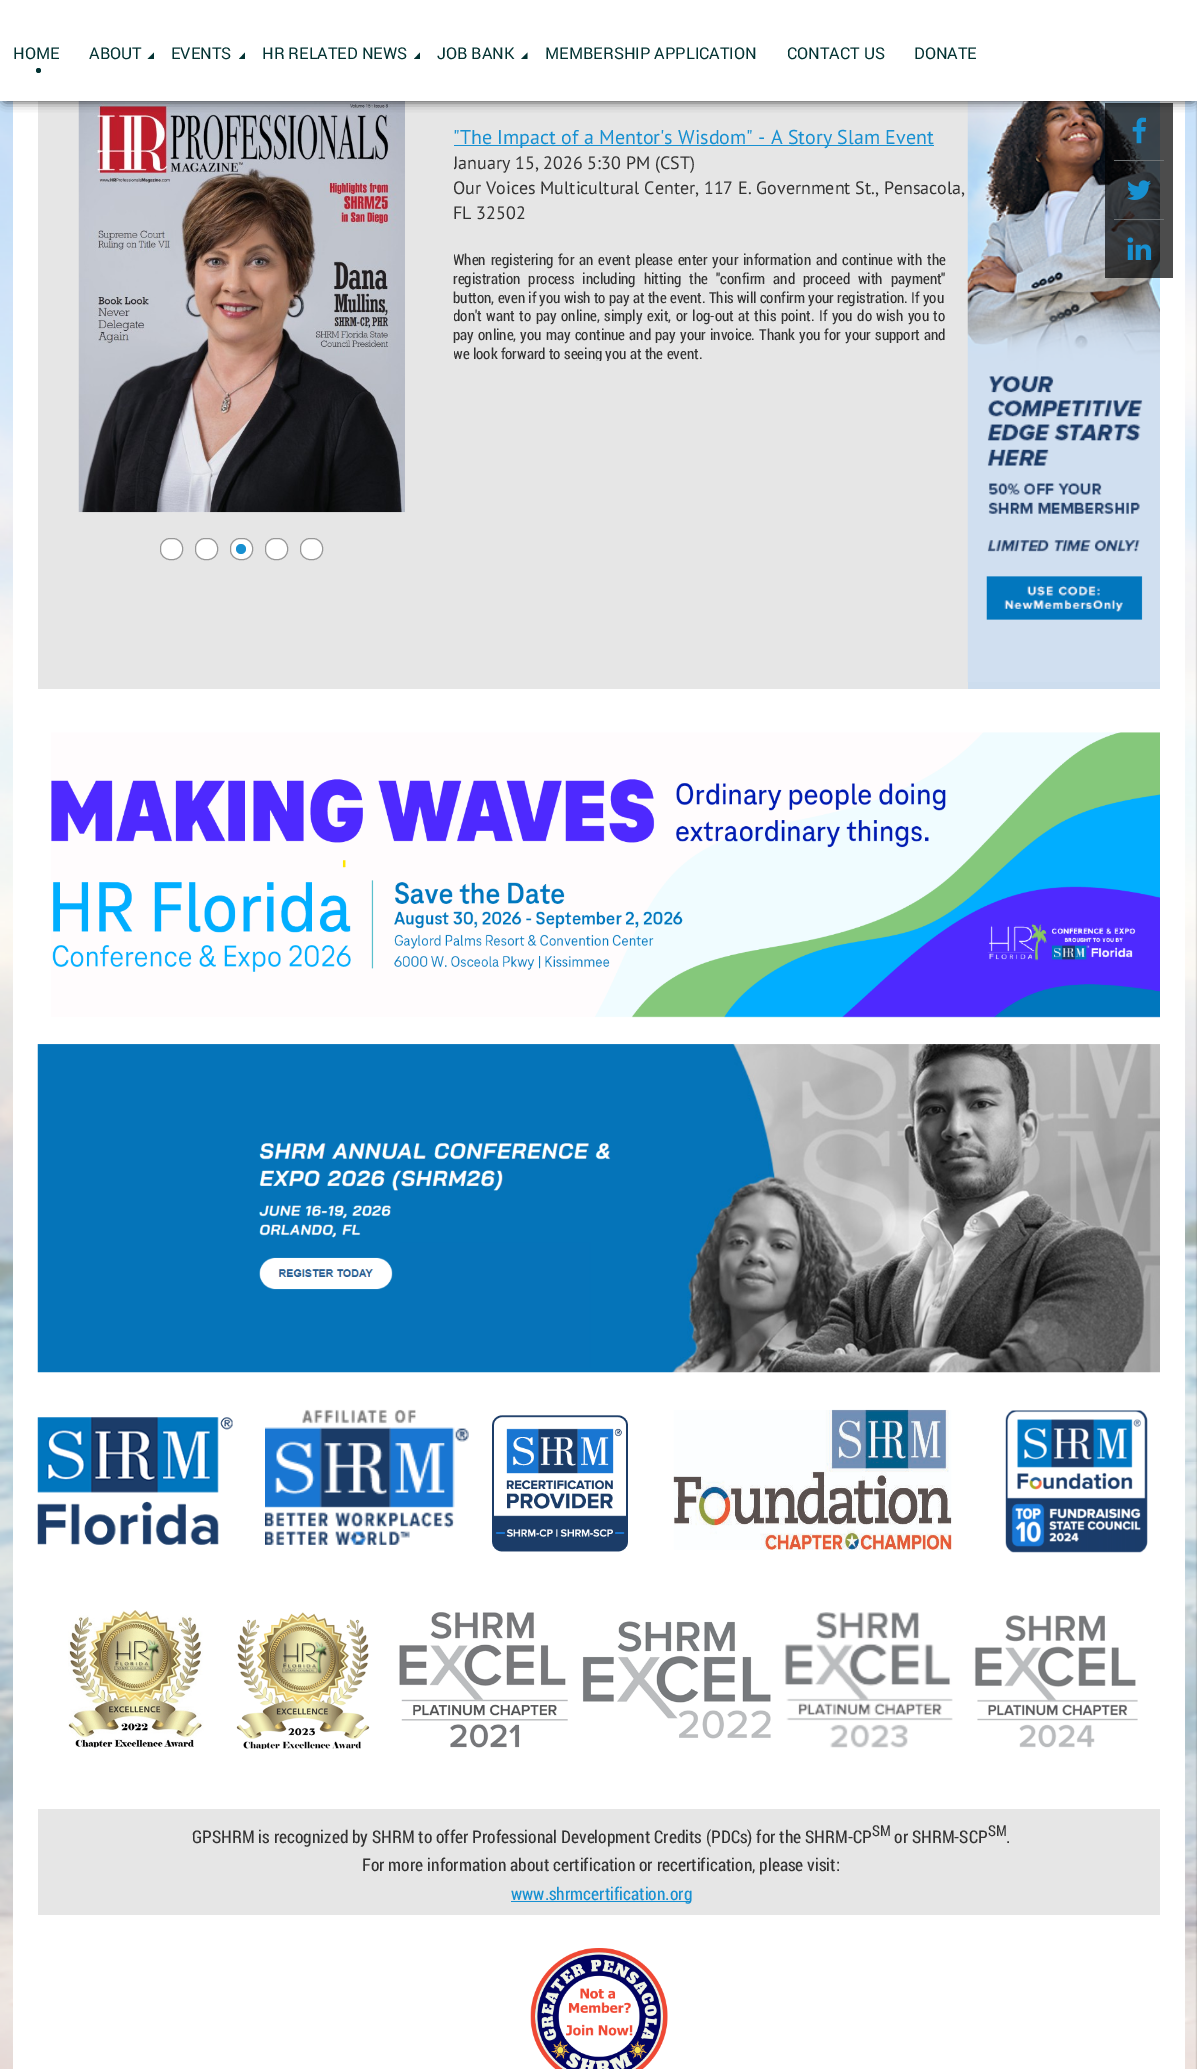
%!PS
<< /PageSize [1197 2069] /PageUsesTransparency true >> setpagedevice
/mt/moveto load def
/li/lineto load def
/cp/closepath load def
/fl/fill load def
/st/stroke load def
/gs/gsave load def
/gr/grestore load def
/co { dup -16 bitshift 255 div exch dup -8 bitshift 255 and 255 div exch 255 and 255 div setrgbcolor } def
/fn { [ exch dup neg 0 0 3 -1 roll 0 0 ] selectfont } def
/tx { co fn moveto show } def
/bx { co rectfill } def
/al { dup .setfillconstantalpha .setstrokeconstantalpha } def
/ci { newpath 0 360 arc closepath } def
/rr { 5 dict begin { /r /h /w /y /x } { exch def } forall
  x r add y moveto x w add y 2 copy h add r arct x w add y h add x 1 index r arct
  x y h add x y r arct x y 2 copy exch w add exch r arct closepath end } def
/sh { 12 dict begin { /a /b /q /h /w /y /x } { exch def } forall gsave /was 0 def
  9 -2 -9 { dup b mul 4 div /e exch def 1 sub .425 mul 2.718 exch exp 1 add a .99 .min exch div /now exch def
    1 1 now sub 1 was sub div sub al /was now def
    w h .min e 2 mul add 0 gt { x e sub y e sub w e 2 mul add h e 2 mul add
      q e add b .6 mul add w h .min 2 div e add .min 0 .max rr fill } if } for grestore end } def
/im { 5 dict begin { /h /w /y /x /name } { exch def } forall
  gsave x y translate w h scale
  w h 8 [w 0 0 h 0 0] name (r) file false 3 colorimage grestore end } def
0 .pushpdf14devicefilter
0 2069 translate 1 -1 scale
4 setmiterlimit
0 0 1197 2069 16#FFFFFF bx
(media/1.raw) 0 101 1197 1968 im
13 101 1172 1968 16#FFFFFF bx
38 101 930 588 16#E6E6E6 bx
(media/2.raw) 78 101 327 412 im
(media/3.raw) 967 101 193 581 im
0.7 al
1105 103 68 175 16#000000 bx
1 al
(media/13.raw) 1132 117 14 27 im
5 9 1188 91 0 5.5 1 sh
0 0 1197 101 16#FFFFFF bx
16#033333 co
38.5 70.5 2.5 ci fl
154 59 mt 147.5 59 li 154 52.5 li cp fl
245 59 mt 239 59 li 245 52.5 li cp fl
420 59 mt 414 59 li 420 52.5 li cp fl
527.5 59 mt 521 59 li 527.5 52.5 li cp fl
16#FFFFFF co
160.5 538.5 22 21 9.5 rr gs fl gr
16#989898 co
st
16#FFFFFF co
195.5 538.5 22 21 9.5 rr gs fl gr
16#989898 co
st
16#FFFFFF co
230.5 538.5 22 21 9.5 rr gs fl gr
16#989898 co
st
16#1790D1 co
241 549 5 ci fl
16#FFFFFF co
265.5 538.5 22 21 9.5 rr gs fl gr
16#989898 co
st
16#FFFFFF co
300.5 538.5 22 21 9.5 rr gs fl gr
16#989898 co
st
968 682 192 7 16#CDDDEE bx
454 145 480 1 16#1790D1 bx
(media/4.raw) 51 732 1109 286 im
(media/5.raw) 37 1044 1123 329 im
(media/6.raw) 37 1417 196 128 im
(media/7.raw) 265 1409 204 136 im
(media/8.raw) 492 1415 136 137 im
(media/9.raw) 673 1409 279 141 im
(media/10.raw) 1005 1410 143 143 im
(media/11.raw) 68 1610 1070 139 im
38 1809 1122 106 16#E6E6E6 bx
511 1901 180 1 16#1790D1 bx
(media/12.raw) 530 1948 138 121 im
1114 160 50 1 16#6D7173 bx
1114 219 50 1 16#6D7173 bx
(media/14.raw) 1127 180 24 20 im
(media/15.raw) 1127 237 25 23 im
(HOME) 13 59 /Roboto-Regular 16.25 16#033333 tx
(ABOUT) 89 59 /Roboto-Regular 16.25 16#033333 tx
(EVENTS) 171 59 /Roboto-Regular 16.25 16#033333 tx
(HR RELATED NEWS) 262 59 /Roboto-Regular 16.25 16#033333 tx
(JOB BANK) 437 59 /Roboto-Regular 16.25 16#033333 tx
(MEMBERSHIP APPLICATION) 545 59 /Roboto-Regular 16.25 16#033333 tx
(CONTACT US) 787 59 /Roboto-Regular 16.25 16#033333 tx
(DONATE) 914 59 /Roboto-Regular 16.25 16#033333 tx
("The Impact of a Mentor's Wisdom" - A Story Slam Event) 453 144 /PTSans-Regular 20 16#1790D1 tx
gs
454 0 514 224 rectclip
(January 15, 2026 5:30 PM \(CST\)) 453 169 /PTSans-Regular 18 16#333333 tx
gr
(Our Voices Multicultural Center, 117 E. Government St., Pensacola,) 453 194 /PTSans-Regular 18 16#333333 tx
(FL 32502) 453 219 /PTSans-Regular 18 16#333333 tx
gs
454 224 514 137 rectclip
/RobotoCondensed-Regular 15 fn
453 265 mt 1.5 0 32 (When registering for an event please enter your information and continue with the) widthshow
gr
/RobotoCondensed-Regular 15 fn
453 284 mt 4.75 0 32 (registration process including hitting the "confirm and proceed with payment") widthshow
(button, even if you wish to pay at the event. This will confirm your registration. If you) 453 303 /RobotoCondensed-Regular 15 16#333333 tx
gs
454 224 514 137 rectclip
453 321 mt 1.3 0 32 (don't want to pay online, simply exit, or log-out at this point. If you do wish you to) widthshow
gr
453 340 mt .9 0 32 (pay online, you may continue and pay your invoice. Thank you for your support and) widthshow
gs
454 224 514 137 rectclip
(we look forward to seeing you at the event.) 453 359 /RobotoCondensed-Regular 15 16#333333 tx
gr
(GPSHRM is recognized by SHRM to offer Professional Development Credits \(PDCs\) for the SHRM-CP) 192 1843 /RobotoCondensed-Regular 17.5 16#333333 tx
(SM) 872 1836 /RobotoCondensed-Regular 15 16#333333 tx
(or SHRM-SCP) 894 1843 /RobotoCondensed-Regular 17.5 16#333333 tx
(SM) 988 1836 /RobotoCondensed-Regular 15 16#333333 tx
(.) 1006 1843 /RobotoCondensed-Regular 17.5 16#333333 tx
(For more information about certification or recertification, please visit:) 362 1871 /RobotoCondensed-Regular 17.5 16#333333 tx
(www.shrmcertification.org) 511 1900 /RobotoCondensed-Regular 17.5 16#1790D1 tx
.poppdf14devicefilter showpage
